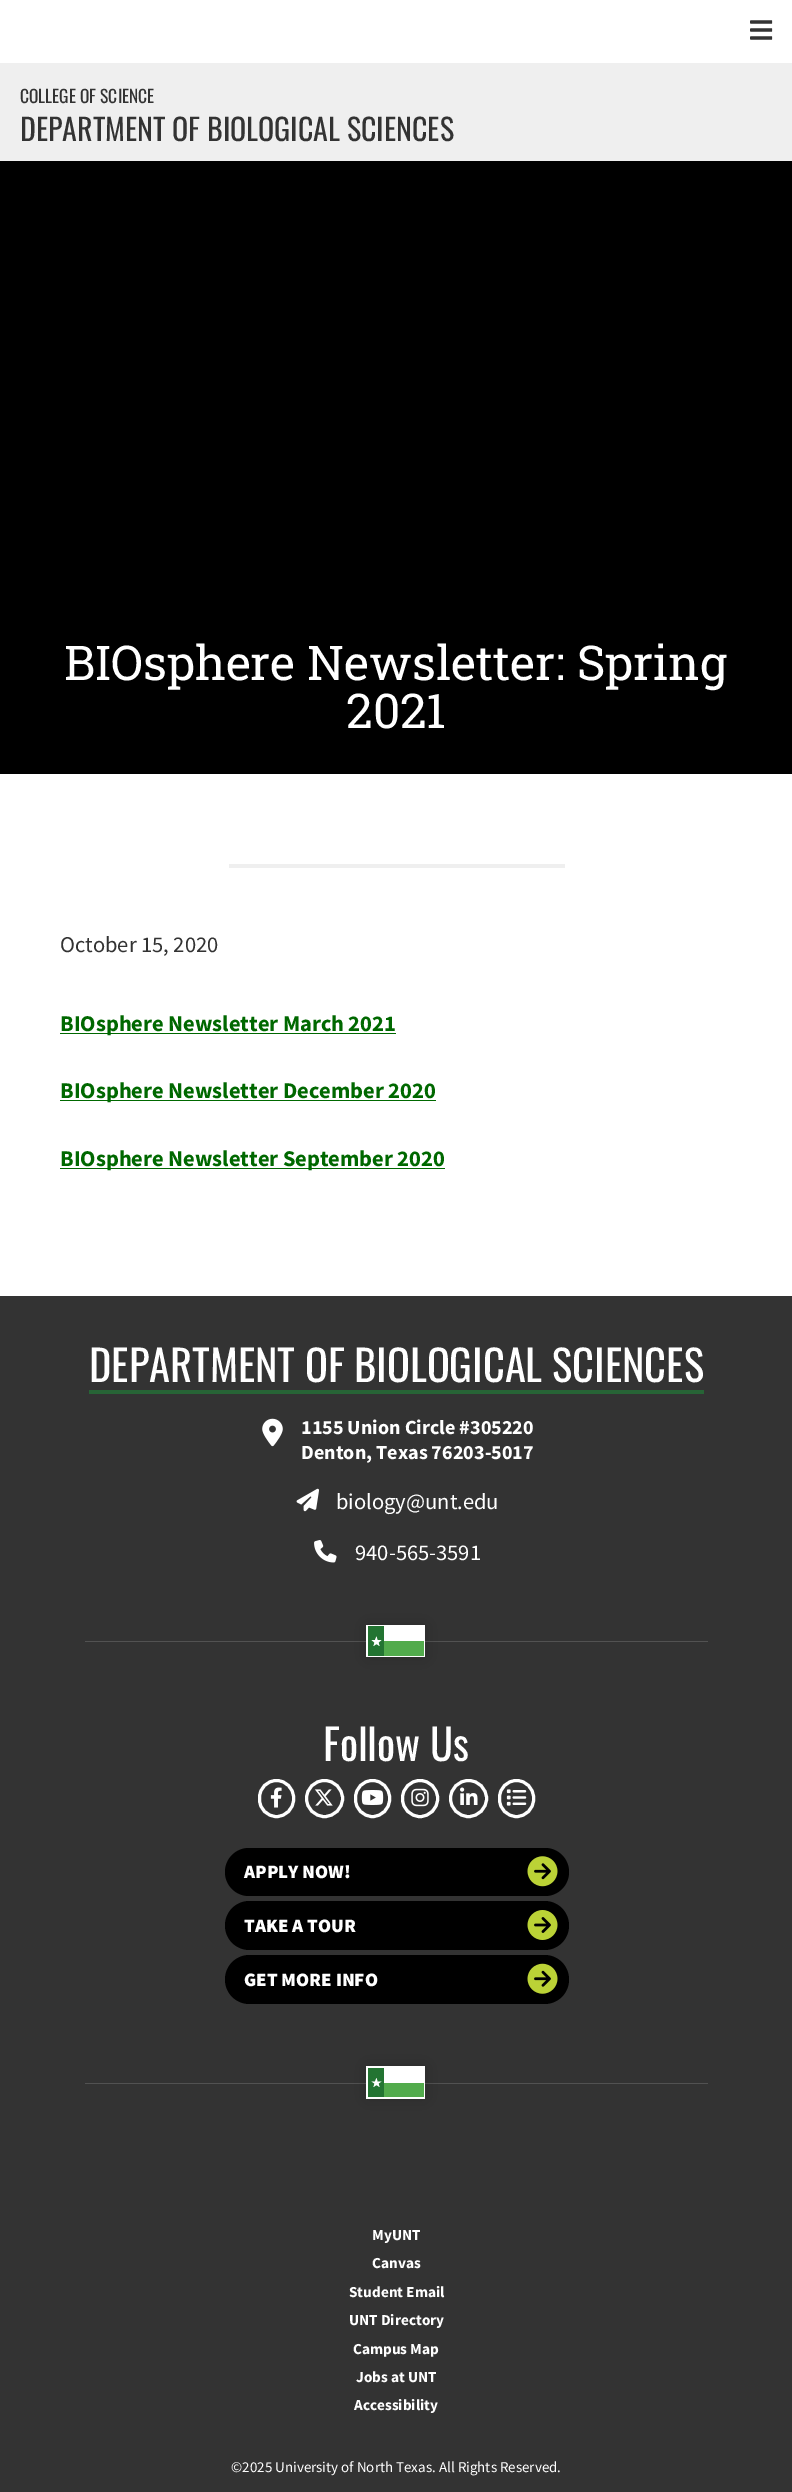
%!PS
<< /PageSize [792 2492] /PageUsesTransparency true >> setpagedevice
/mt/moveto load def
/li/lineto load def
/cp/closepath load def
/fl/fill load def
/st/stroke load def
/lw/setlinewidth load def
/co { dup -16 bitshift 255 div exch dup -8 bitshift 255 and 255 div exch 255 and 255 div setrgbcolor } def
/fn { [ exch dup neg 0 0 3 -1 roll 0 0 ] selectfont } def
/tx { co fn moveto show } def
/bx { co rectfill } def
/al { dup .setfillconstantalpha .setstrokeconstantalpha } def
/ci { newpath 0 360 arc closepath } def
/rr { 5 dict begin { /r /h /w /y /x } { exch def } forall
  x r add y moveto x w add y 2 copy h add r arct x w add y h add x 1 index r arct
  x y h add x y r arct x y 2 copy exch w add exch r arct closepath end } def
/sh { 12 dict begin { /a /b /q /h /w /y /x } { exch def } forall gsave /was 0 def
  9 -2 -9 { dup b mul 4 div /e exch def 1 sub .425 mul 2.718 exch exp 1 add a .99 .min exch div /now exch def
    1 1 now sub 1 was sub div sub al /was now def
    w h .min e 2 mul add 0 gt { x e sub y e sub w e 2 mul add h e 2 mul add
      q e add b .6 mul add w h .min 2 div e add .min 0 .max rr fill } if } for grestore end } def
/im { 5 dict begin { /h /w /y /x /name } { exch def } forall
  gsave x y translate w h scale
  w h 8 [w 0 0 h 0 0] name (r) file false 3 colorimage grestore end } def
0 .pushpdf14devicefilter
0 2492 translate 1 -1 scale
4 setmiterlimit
0 0 792 2492 16#FFFFFF bx
(media/1.raw) 750 20 23 20 im
0 63 792 98 16#EFEFEF bx
0 161 792 613 16#000000 bx
229 864 336 4 16#EFEFEF bx
60 1033 336 1 16#006800 bx
60 1100 376 1 16#006800 bx
60 1168 385 1 16#006800 bx
0 1296 792 1196 16#333333 bx
89 1390 615 4 16#276436 bx
(media/2.raw) 262 1418 21 29 im
(media/3.raw) 296 1488 23 24 im
(media/4.raw) 314 1540 23 23 im
85 1641 623 1 16#525252 bx
16#000000 co
366 1625 60 33 0 9.5 .15 sh
366 1625 59 32 16#FFFFFF bx
384 1641 40 15 16#52AB4C bx
368 1626 16 30 16#237432 bx
16#FFFFFF co
376.5 1636.5 mt 377.5 1640 li 381.5 1640 li 378.5 1642.5 li 379.5 1646 li 376.5 1644 li 373.5 1646 li 374.5 1642.5 li 371.5 1640 li 375 1640 li cp fl
3 lw
259.5 1780.5 34 36 17 rr st
(media/5.raw) 270 1787 12 21 im
324.5 1798.5 18 ci st
(media/6.raw) 314 1789 19 17 im
355.5 1780.5 34 36 17 rr st
(media/7.raw) 361 1790 23 15 im
402.5 1780.5 35 36 17.5 rr st
(media/8.raw) 411 1788 18 19 im
468.5 1798.5 18 ci st
(media/9.raw) 460 1787 18 18 im
499.5 1780.5 34 36 17 rr st
(media/10.raw) 506 1789 21 17 im
16#000000 co
225 1848 344 48 24 rr fl
(media/11.raw) 527 1856 31 31 im
225 1901 344 49 24.5 rr fl
(media/12.raw) 527 1910 31 30 im
225 1955 344 49 24.5 rr fl
(media/13.raw) 527 1963 31 31 im
85 2083 623 1 16#525252 bx
16#000000 co
366 2066 60 33 0 9.5 .15 sh
366 2066 59 33 16#FFFFFF bx
384 2083 40 14 16#52AB4C bx
368 2068 16 29 16#237432 bx
16#FFFFFF co
376.5 2078 mt 377.5 2081.5 li 381.5 2081.5 li 378.5 2083.5 li 379.5 2087 li 376.5 2085 li 373.5 2087 li 374.5 2083.5 li 371.5 2081.5 li 375 2081.5 li cp fl
(COLLEGE OF SCIENCE) 20 103 /Oswald-Regular 17.5 16#333333 tx
(DEPARTMENT OF BIOLOGICAL SCIENCES) 20 141 /Oswald-Regular 30 16#333333 tx
(BIOsphere Newsletter: Spring) 64 680 /RobotoSlab-Regular 48 16#FFFFFF tx
(2021) 346 728 /RobotoSlab-Regular 48 16#FFFFFF tx
(October 15, 2020) 60 952 /SourceSansPro-Regular 22.5 16#333333 tx
(BIOsphere Newsletter March 2021) 60 1031 /SourceSansPro-Bold 22.5 16#006800 tx
(BIOsphere Newsletter December 2020) 60 1098 /SourceSansPro-Bold 22.5 16#006800 tx
(BIOsphere Newsletter September 2020) 60 1166 /SourceSansPro-Bold 22.5 16#006800 tx
(DEPARTMENT OF BIOLOGICAL SCIENCES) 89 1382 /Oswald-Regular 42.5 16#FFFFFF tx
(1155 Union Circle #305220) 301 1434 /SourceSansPro-Bold 20.1 16#FFFFFF tx
(Denton, Texas 76203-5017) 301 1459 /SourceSansPro-Bold 20.1 16#FFFFFF tx
(biology@unt.edu) 336 1509 /SourceSansPro-Regular 22.5 16#FFFFFF tx
(940-565-3591) 355 1560 /SourceSansPro-Regular 22.5 16#FFFFFF tx
(Follow Us) 323 1761 /Oswald-Regular 42.5 16#FFFFFF tx
(APPLY NOW!) 244 1878 /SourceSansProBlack-Black 19 16#FFFFFF tx
(TAKE A TOUR) 244 1932 /SourceSansProBlack-Black 19 16#FFFFFF tx
(GET MORE INFO) 244 1986 /SourceSansProBlack-Black 19 16#FFFFFF tx
(MyUNT) 372 2240 /SourceSansPro-Bold 15.25 16#FFFFFF tx
(Canvas) 372 2268 /SourceSansPro-Bold 15.25 16#FFFFFF tx
(Student Email) 349 2297 /SourceSansPro-Bold 15.25 16#FFFFFF tx
(UNT Directory) 349 2325 /SourceSansPro-Bold 15.25 16#FFFFFF tx
(Campus Map) 353 2354 /SourceSansPro-Bold 15.25 16#FFFFFF tx
(Jobs at UNT) 356 2382 /SourceSansPro-Bold 15.25 16#FFFFFF tx
(Accessibility) 354 2410 /SourceSansPro-Bold 15.25 16#FFFFFF tx
(©2025 University of North Texas. All Rights Reserved.) 231 2472 /SourceSansPro-Regular 15 16#FFFFFF tx
.poppdf14devicefilter showpage
